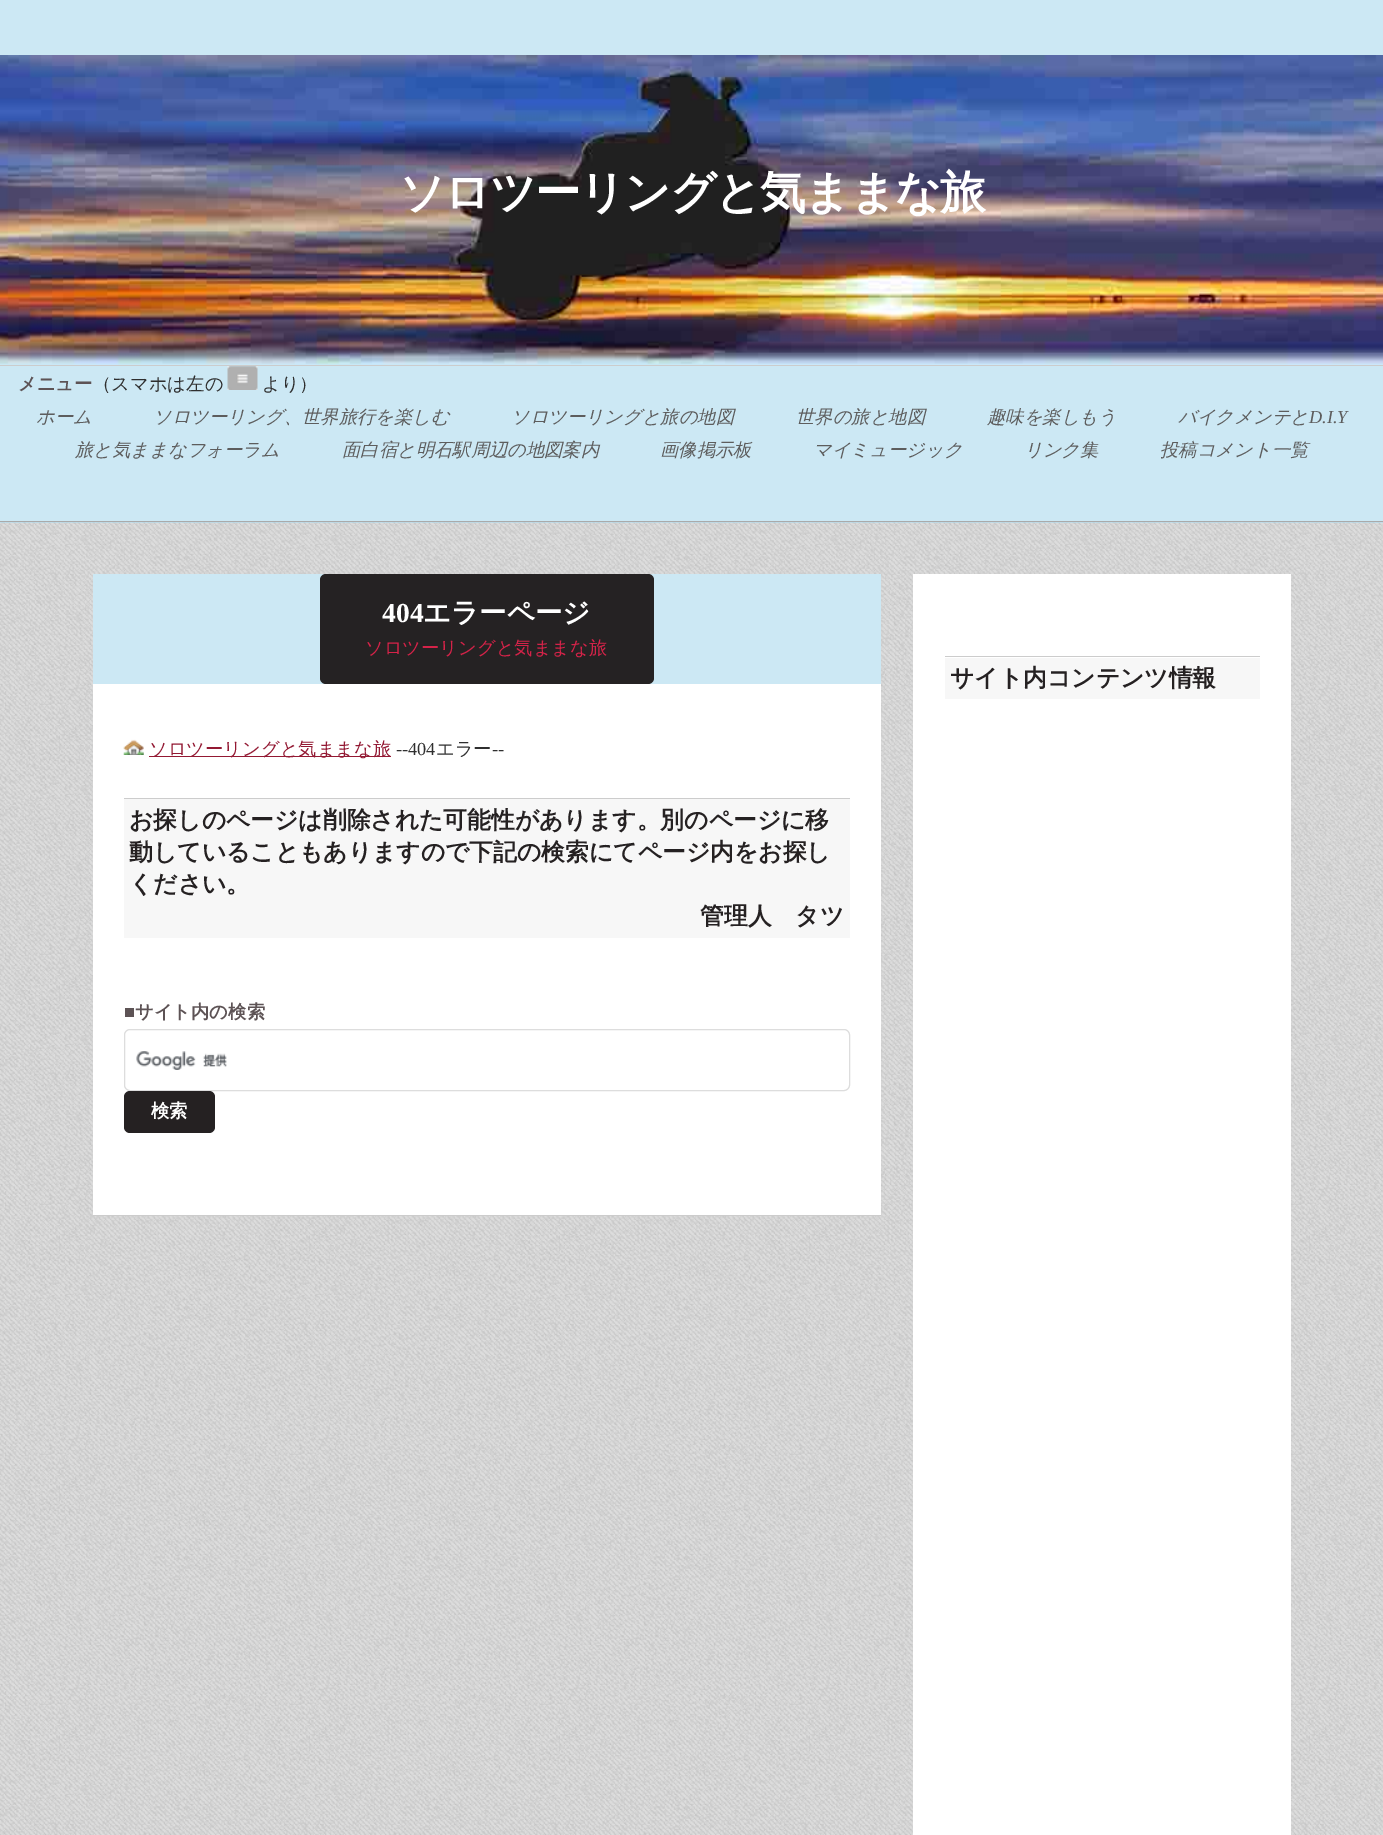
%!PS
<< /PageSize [1383 1835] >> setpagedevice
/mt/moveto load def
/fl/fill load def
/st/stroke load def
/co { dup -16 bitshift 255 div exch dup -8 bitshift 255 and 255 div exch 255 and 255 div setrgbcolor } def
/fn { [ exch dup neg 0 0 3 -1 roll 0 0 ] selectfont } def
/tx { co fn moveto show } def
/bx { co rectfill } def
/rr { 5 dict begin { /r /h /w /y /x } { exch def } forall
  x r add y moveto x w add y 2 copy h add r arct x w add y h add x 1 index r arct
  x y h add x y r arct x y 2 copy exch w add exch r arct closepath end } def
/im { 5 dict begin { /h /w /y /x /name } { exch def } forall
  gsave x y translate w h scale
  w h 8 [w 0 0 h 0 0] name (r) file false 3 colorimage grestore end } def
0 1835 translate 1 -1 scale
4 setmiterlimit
0 0 1383 1835 16#CCE8F4 bx
0 521 1383 1 16#AAAAAA bx
(media/1.raw) 0 55 1383 310 im
0 365 1383 1 16#CCCCCC bx
(media/2.raw) 227 366 31 24 im
0 523 1383 1312 16#F7F7F7 bx
(media/3.raw) 0 522 1383 1313 im
93 574 788 110 16#CCE8F4 bx
16#252223 co
320 574 334 110 6 rr fl
93 684 788 531 16#FFFFFF bx
93 1215 788 1 16#CCCCCC bx
(media/4.raw) 123 739 21 16 im
149 756 242 1 16#931933 bx
124 798 726 1 16#CCCCCC bx
124 799 726 139 16#F7F7F7 bx
(media/5.raw) 136 1051 91 19 im
16#DDDDDD co
124.5 1029.5 725 61 5.5 rr st
16#252122 co
124 1091 91 42 6 rr fl
913 574 378 1261 16#FFFFFF bx
945 656 315 1 16#CCCCCC bx
945 658 315 41 16#F7F7F7 bx
/WenQuanYiZenHei-Bold 45.8 fn
16#FFFFFF co
399 208 mt -1.6 0 (ソロツーリングと気ままな旅) ashow
(メニュー) 18 390 /WenQuanYiZenHei-Bold 18.3 16#5D5355 tx
(（スマホは左の) 93 390 /WenQuanYiZenHei-Medium 18.3 16#2F2F2F tx
(より）) 262 390 /WenQuanYiZenHei-Medium 18.3 16#2F2F2F tx
(ホーム) 36 423 /WenQuanYiZenHei-MediumItalic 18.3 16#5D5D5D tx
(ソロツーリング、世界旅行を楽しむ) 153 423 /WenQuanYiZenHei-MediumItalic 18.3 16#5D5D5D tx
(ソロツーリングと旅の地図) 511 423 /WenQuanYiZenHei-MediumItalic 18.3 16#5D5D5D tx
(世界の旅と地図) 796 423 /WenQuanYiZenHei-MediumItalic 18.3 16#5D5D5D tx
(趣味を楽しもう) 987 423 /WenQuanYiZenHei-MediumItalic 18.3 16#5D5D5D tx
(バイクメンテと) 1178 423 /WenQuanYiZenHei-MediumItalic 18.3 16#5D5D5D tx
(D.I.Y) 1309 423 /LiberationSerif-Italic 18.3 16#5D5D5D tx
(旅と気ままなフォーラム) 75 456 /WenQuanYiZenHei-MediumItalic 18.3 16#5D5D5D tx
(面白宿と明石駅周辺の地図案内) 342 456 /WenQuanYiZenHei-MediumItalic 18.3 16#5D5D5D tx
(画像掲示板) 660 456 /WenQuanYiZenHei-MediumItalic 18.3 16#5D5D5D tx
(マイミュージック) 813 456 /WenQuanYiZenHei-MediumItalic 18.3 16#5D5D5D tx
(リンク集) 1024 456 /WenQuanYiZenHei-MediumItalic 18.3 16#5D5D5D tx
(投稿コメント一覧) 1160 456 /WenQuanYiZenHei-MediumItalic 18.3 16#5D5D5D tx
(404) 382 622 /LiberationSerif-Bold 27.5 16#FFFFFF tx
(エラーページ) 423 622 /WenQuanYiZenHei-Bold 27.5 16#FFFFFF tx
(ソロツーリングと気ままな旅) 365 654 /WenQuanYiZenHei-Medium 18.3 16#D52349 tx
(ソロツーリングと気ままな旅) 149 755 /WenQuanYiZenHei-Medium 18.3 16#931933 tx
(--404) 396 755 /LiberationSerif-Regular 18.3 16#2F2F2F tx
(エラー) 436 755 /WenQuanYiZenHei-Medium 18.3 16#2F2F2F tx
(--) 492 755 /LiberationSerif-Regular 18.3 16#2F2F2F tx
(お探しのページは削除された可能性があります。別のページに移) 129 828 /WenQuanYiZenHei-Bold 23.8 16#252122 tx
(動していることもありますので下記の検索にてページ内をお探し) 129 860 /WenQuanYiZenHei-Bold 23.8 16#252122 tx
(ください。) 129 892 /WenQuanYiZenHei-Bold 23.8 16#252122 tx
(管理人　タツ) 700 924 /WenQuanYiZenHei-Bold 23.8 16#252122 tx
(■) 124 1018 /LiberationSerif-Bold 18.3 16#5D5355 tx
(サイト内の検索) 135 1018 /WenQuanYiZenHei-Bold 18.3 16#5D5355 tx
(検索) 151 1117 /WenQuanYiZenHei-Bold 18.3 16#FFFFFF tx
(サイト内コンテンツ情報) 950 686 /WenQuanYiZenHei-Bold 23.8 16#252122 tx
showpage
